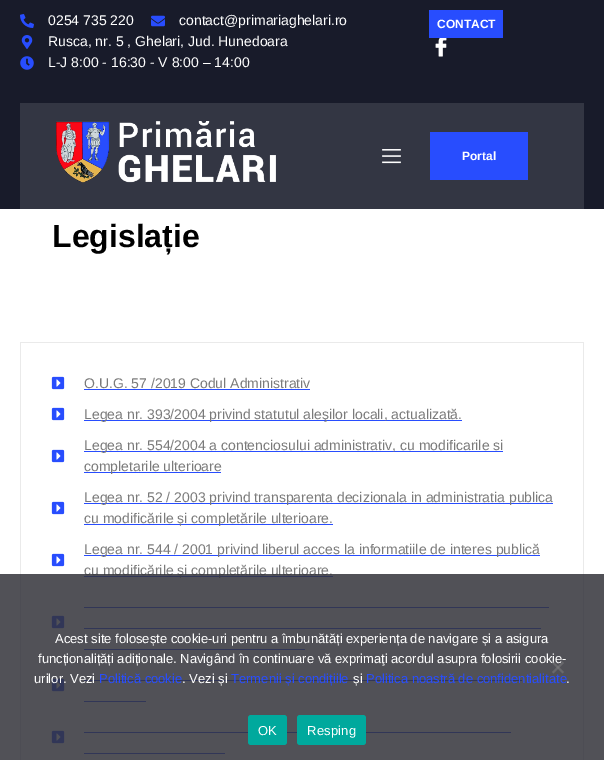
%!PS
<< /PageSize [604 760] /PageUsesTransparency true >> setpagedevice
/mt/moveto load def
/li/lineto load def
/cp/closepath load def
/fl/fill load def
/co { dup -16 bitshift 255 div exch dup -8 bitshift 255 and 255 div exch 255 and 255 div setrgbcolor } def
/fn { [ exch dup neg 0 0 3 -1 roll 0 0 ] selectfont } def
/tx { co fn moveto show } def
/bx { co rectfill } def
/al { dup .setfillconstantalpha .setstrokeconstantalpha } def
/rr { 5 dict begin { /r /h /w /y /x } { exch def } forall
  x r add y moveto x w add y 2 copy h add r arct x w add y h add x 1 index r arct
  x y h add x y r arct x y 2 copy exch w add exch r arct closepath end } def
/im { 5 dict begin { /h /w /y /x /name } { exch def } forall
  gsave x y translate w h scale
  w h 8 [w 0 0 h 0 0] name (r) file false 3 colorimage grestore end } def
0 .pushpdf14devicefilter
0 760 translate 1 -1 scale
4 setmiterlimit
0 0 604 760 16#FFFFFF bx
0 0 604 209 16#181B2A bx
(media/1.raw) 20 14 14 14 im
(media/2.raw) 151 15 14 12 im
(media/3.raw) 21 35 12 14 im
(media/4.raw) 20 56 14 14 im
429 10 74 28 16#284DFE bx
(media/5.raw) 435 38 12 19 im
20 103 564 106 16#333643 bx
(media/6.raw) 56 121 220 62 im
(media/7.raw) 382 149 19 15 im
430 132 98 48 16#284DFE bx
20 342 564 1 16#EAEAEA bx
583 342 1 418 16#EAEAEA bx
20 342 1 418 16#EAEAEA bx
(media/8.raw) 51 376 14 14 im
84 389 226 1 16#284DFE bx
(media/8.raw) 51 407 14 14 im
84 420 378 1 16#284DFE bx
(media/8.raw) 51 449 14 14 im
84 451 419 1 16#284DFE bx
84 472 137 1 16#284DFE bx
(media/8.raw) 51 501 14 14 im
84 503 469 1 16#284DFE bx
84 524 249 1 16#284DFE bx
(media/8.raw) 51 553 14 14 im
84 555 456 1 16#284DFE bx
84 576 249 1 16#284DFE bx
(media/8.raw) 51 615 14 14 im
84 607 465 1 16#284DFE bx
84 628 457 1 16#284DFE bx
84 649 221 1 16#284DFE bx
(media/8.raw) 51 678 14 14 im
84 680 438 1 16#284DFE bx
84 701 62 1 16#284DFE bx
(media/8.raw) 51 730 14 14 im
84 732 427 1 16#284DFE bx
84 753 141 1 16#284DFE bx
(0254 735 220) 48 25 /LiberationSans-Regular 14 16#FFFFFF tx
(contact@primariaghelari.ro) 179 25 /LiberationSans-Regular 14 16#FFFFFF tx
(Rusca, nr. 5 , Ghelari, Jud. Hunedoara) 48 46 /LiberationSans-Regular 14 16#FFFFFF tx
(L-J 8:00 - 16:30 - V 8:00 – 14:00) 48 67 /LiberationSans-Regular 14 16#FFFFFF tx
(CONTACT) 437 28 /LiberationSans-Bold 12 16#FFFFFF tx
(Portal) 462 160 /LiberationSans-Bold 12 16#FFFFFF tx
(Legislație) 52 247 /LiberationSans-Bold 32 16#000000 tx
(O.U.G. 57 /2019 Codul Administrativ) 84 388 /LiberationSans-Regular 14 16#7A7A7A tx
(Legea nr. 393/2004 privind statutul aleşilor locali, actualizată.) 84 419 /LiberationSans-Regular 14 16#7A7A7A tx
(Legea nr. 554/2004 a contenciosului administrativ, cu modificarile si) 84 450 /LiberationSans-Regular 14 16#7A7A7A tx
(completarile ulterioare) 84 471 /LiberationSans-Regular 14 16#7A7A7A tx
(Legea nr. 52 / 2003 privind transparenta decizionala in administratia publica) 84 502 /LiberationSans-Regular 14 16#7A7A7A tx
(cu modificările și completările ulterioare.) 84 523 /LiberationSans-Regular 14 16#7A7A7A tx
(Legea nr. 544 / 2001 privind liberul acces la informatiile de interes publică) 84 554 /LiberationSans-Regular 14 16#7A7A7A tx
(cu modificările și completările ulterioare.) 84 575 /LiberationSans-Regular 14 16#7A7A7A tx
0.85 al
0 574 604 186 16#32323A bx
1 al
(Acest site folosește cookie-uri pentru a îmbunătăți experiența de navigare și a asigura) 55 643 /LiberationSans-Regular 13 16#FFFFFF tx
(funcționalițăți adiționale. Navigând în continuare vă exprimaţi acordul asupra folosirii cookie-) 38 663 /LiberationSans-Regular 13 16#FFFFFF tx
(urilor. Vezi) 34 683 /LiberationSans-Regular 13 16#FFFFFF tx
(Politică cookie) 99 683 /LiberationSans-Regular 13 16#284DFE tx
(. Vezi și) 182 683 /LiberationSans-Regular 13 16#FFFFFF tx
(Termenii și condițiile) 231 683 /LiberationSans-Regular 13 16#284DFE tx
(și) 353 683 /LiberationSans-Regular 13 16#FFFFFF tx
(Politica noastră de confidentialitate) 366 683 /LiberationSans-Regular 13 16#284DFE tx
(.) 566 683 /LiberationSans-Regular 13 16#FFFFFF tx
16#68686C co
562.5 661.5 mt 564 663 li 553.5 673.5 li 552 672 li cp fl
0.5 al
16#808080 co
552 663 mt 553.5 661.5 li 564 672 li 562.5 673.5 li cp fl
1 al
16#00A99D co
248 715 39 30 3 rr fl
16#FFFFFF co
258 735 mt .25 0 (OK) ashow
16#00A99D co
297 715 69 30 3 rr fl
16#FFFFFF co
307 735 mt .25 0 (Resping) ashow
.poppdf14devicefilter showpage
